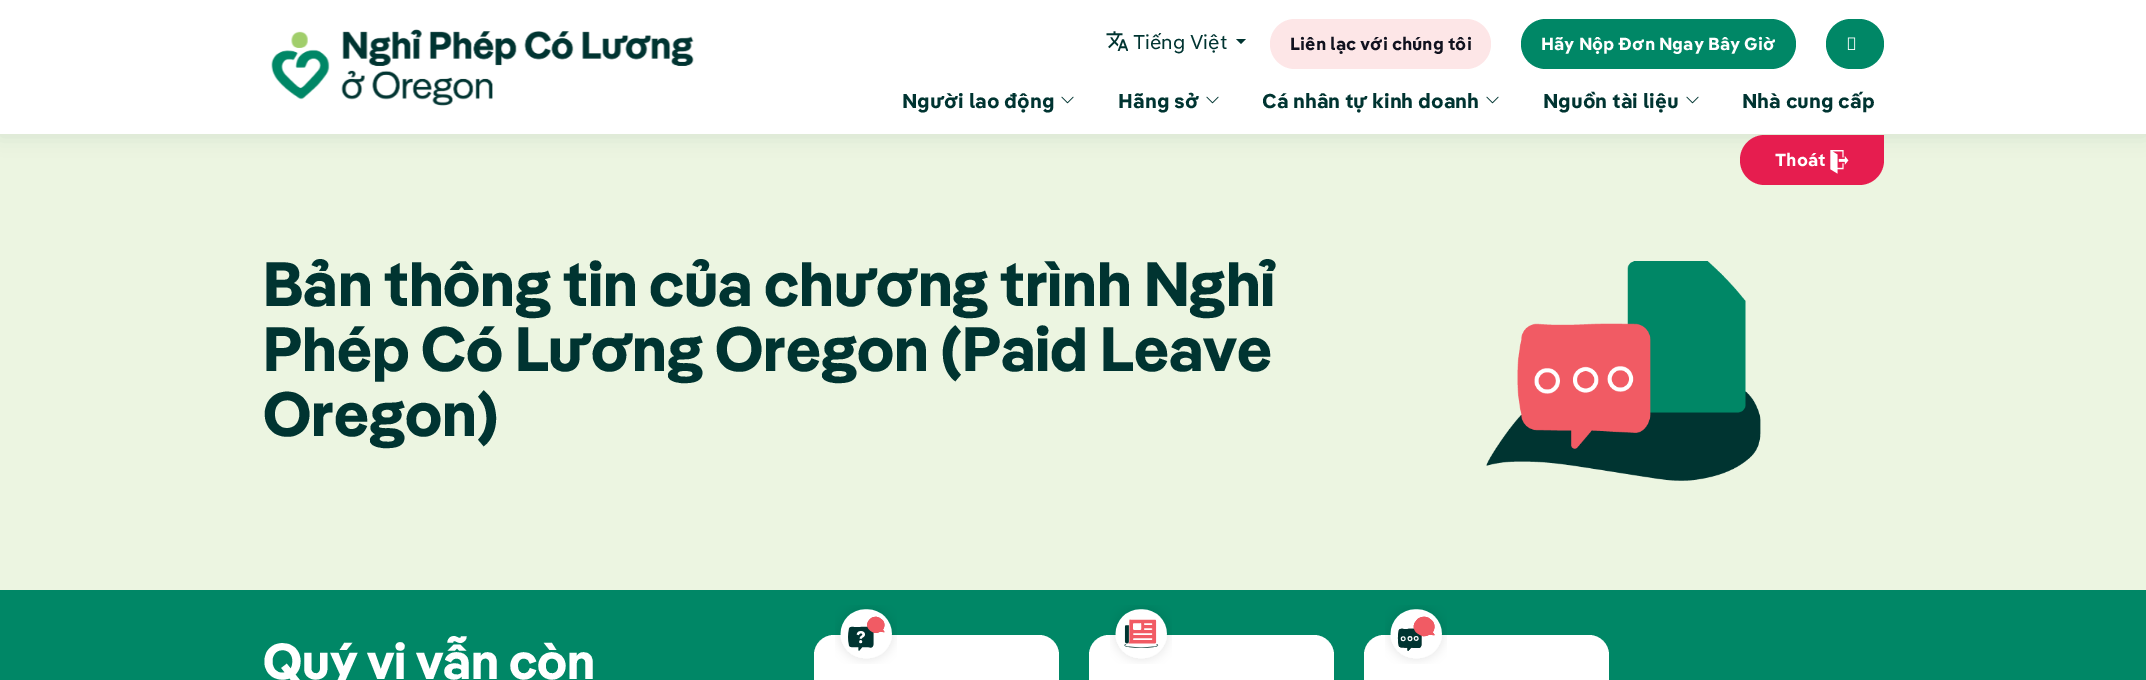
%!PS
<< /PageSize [2146 680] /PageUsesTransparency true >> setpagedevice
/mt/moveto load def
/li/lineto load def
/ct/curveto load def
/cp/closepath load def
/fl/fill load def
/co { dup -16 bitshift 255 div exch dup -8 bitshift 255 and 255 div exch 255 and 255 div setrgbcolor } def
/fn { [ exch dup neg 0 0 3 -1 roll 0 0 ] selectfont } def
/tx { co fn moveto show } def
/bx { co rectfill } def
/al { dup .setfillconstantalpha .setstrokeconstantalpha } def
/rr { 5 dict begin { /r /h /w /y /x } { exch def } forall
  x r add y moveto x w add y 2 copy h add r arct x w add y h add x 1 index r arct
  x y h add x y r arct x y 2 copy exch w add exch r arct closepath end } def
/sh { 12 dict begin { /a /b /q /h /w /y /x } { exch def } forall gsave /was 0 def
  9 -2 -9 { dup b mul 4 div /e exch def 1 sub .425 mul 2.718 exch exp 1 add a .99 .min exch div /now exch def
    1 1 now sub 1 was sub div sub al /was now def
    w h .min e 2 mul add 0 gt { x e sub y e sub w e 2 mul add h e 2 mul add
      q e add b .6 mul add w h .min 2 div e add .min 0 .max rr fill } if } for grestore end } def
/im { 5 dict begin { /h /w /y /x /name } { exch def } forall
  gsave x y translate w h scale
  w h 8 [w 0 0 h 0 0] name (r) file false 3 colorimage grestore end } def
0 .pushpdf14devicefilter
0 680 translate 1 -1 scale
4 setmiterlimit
0 0 2146 680 16#ECF5E1 bx
16#003431 co
0 3 2146 133 0 9.5 .1 sh
0 0 2146 134 16#FFFFFF bx
(media/1.raw) 271 29 423 77 im
(media/2.raw) 1106 31 22 20 im
16#003431 co
1236 39 mt 1246 39 li 1241 44 li cp fl
16#FDE6E7 co
1270 19 221 50 25 rr fl
16#008766 co
1521 19 275 50 25 rr fl
1826 19 58 50 25 rr fl
(media/3.raw) 1847 37 9 13 im
(media/4.raw) 1061 96 13 8 im
(media/4.raw) 1206 96 13 8 im
(media/4.raw) 1486 96 13 8 im
(media/4.raw) 1686 96 13 8 im
16#E61D4F co
1765 135 mt 1884 135 li 1884 160 li 1884 174 1873 185 1859 185 ct 1765 185 li 1751 185 1740 174 1740 160 ct 1740 146 1751 135 1765 135 ct cp fl
(media/5.raw) 1830 150 19 24 im
(media/6.raw) 1486 261 275 220 im
0 590 2146 90 16#008766 bx
16#FFFFFF co
814 635 245 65 20 rr fl
(media/7.raw) 835 605 62 59 im
1089 635 245 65 20 rr fl
(media/8.raw) 1110 605 62 59 im
1364 635 245 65 20 rr fl
(media/9.raw) 1385 605 62 59 im
(Tiếng Việt) 1133 49 /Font-Regular 20 16#003431 tx
(Liên lạc với chúng tôi) 1290 50 /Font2-Bold 17.5 16#11121F tx
(Hãy Nộp Đơn Ngay Bây Giờ) 1541 50 /Font2-Bold 17.5 16#FFFFFF tx
(Người lao động) 902 108 /Font2-Bold 20 16#003431 tx
(Hãng sở) 1118 108 /Font2-Bold 20 16#003431 tx
(Cá nhân tự kinh doanh) 1262 108 /Font2-Bold 20 16#003431 tx
(Nguồn tài liệu) 1543 108 /Font2-Bold 20 16#003431 tx
(Nhà cung cấp) 1742 108 /Font2-Bold 20 16#003431 tx
(Thoát) 1775 166 /Font2-Bold 17.5 16#FFFFFF tx
(Bản thông tin của chương trình Nghỉ) 263 306 /Font-Bold 62.5 16#003431 tx
(Phép Có Lương Oregon \(Paid Leave) 263 371 /Font-Bold 62.5 16#003431 tx
(Oregon\)) 263 436 /Font-Bold 62.5 16#003431 tx
(Quý vị vẫn còn) 263 679 /Font-Bold 50.5 16#FFFFFF tx
.poppdf14devicefilter showpage
